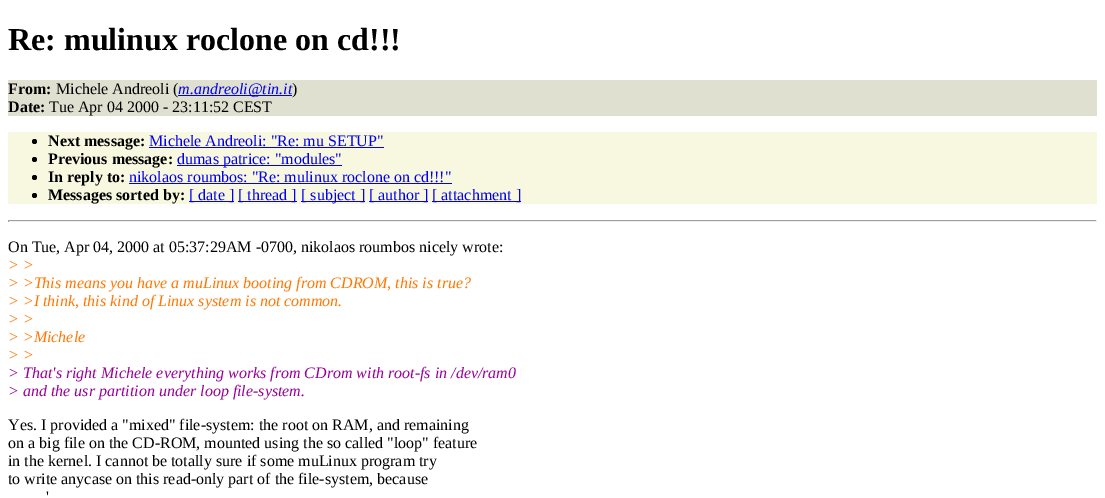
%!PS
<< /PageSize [1105 498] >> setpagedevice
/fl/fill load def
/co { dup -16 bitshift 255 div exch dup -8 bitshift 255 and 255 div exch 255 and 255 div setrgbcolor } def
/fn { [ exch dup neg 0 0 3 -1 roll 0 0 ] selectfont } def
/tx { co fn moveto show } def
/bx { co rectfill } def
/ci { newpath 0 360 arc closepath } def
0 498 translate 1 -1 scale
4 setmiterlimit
0 0 1105 498 16#FFFFFF bx
8 80 1089 36 16#E0E0D0 bx
178 95 114 1 16#0000EE bx
8 132 1089 72 16#F8F8E0 bx
16#000000 co
34.5 141.5 2.5 ci fl
149 147 235 1 16#0000EE bx
16#000000 co
34.5 159.5 2.5 ci fl
177 165 165 1 16#0000EE bx
16#000000 co
34.5 177.5 2.5 ci fl
129 183 323 1 16#0000EE bx
16#000000 co
34.5 195.5 2.5 ci fl
189 201 45 1 16#0000EE bx
238 201 59 1 16#0000EE bx
301 201 64 1 16#0000EE bx
369 201 59 1 16#0000EE bx
432 201 89 1 16#0000EE bx
8 220 1089 1 16#9F9F9F bx
1096 220 1 2 16#EEEEEE bx
8 221 1089 1 16#EEEEEE bx
8 220 1 2 16#9F9F9F bx
(Re: mulinux roclone on cd!!!) 8 50 /LiberationSerif-Bold 32 16#000000 tx
(From:) 8 94 /LiberationSerif-Bold 16 16#000000 tx
(Michele Andreoli \() 56 94 /LiberationSerif-Regular 16 16#000000 tx
(m.andreoli@tin.it) 178 94 /LiberationSerif-Italic 16 16#0000EE tx
(\)) 292 94 /LiberationSerif-Regular 16 16#000000 tx
(Date:) 8 112 /LiberationSerif-Bold 16 16#000000 tx
(Tue Apr 04 2000 - 23:11:52 CEST) 49 112 /LiberationSerif-Regular 16 16#000000 tx
(Next message:) 48 146 /LiberationSerif-Bold 16 16#000000 tx
(Michele Andreoli: "Re: mu SETUP") 149 146 /LiberationSerif-Regular 16 16#0000EE tx
(Previous message:) 48 164 /LiberationSerif-Bold 16 16#000000 tx
(dumas patrice: "modules") 177 164 /LiberationSerif-Regular 16 16#0000EE tx
(In reply to:) 48 182 /LiberationSerif-Bold 16 16#000000 tx
(nikolaos roumbos: "Re: mulinux roclone on cd!!!") 129 182 /LiberationSerif-Regular 16 16#0000EE tx
(Messages sorted by:) 48 200 /LiberationSerif-Bold 16 16#000000 tx
([ date ]) 189 200 /LiberationSerif-Regular 16 16#0000EE tx
([ thread ]) 238 200 /LiberationSerif-Regular 16 16#0000EE tx
([ subject ]) 301 200 /LiberationSerif-Regular 16 16#0000EE tx
([ author ]) 369 200 /LiberationSerif-Regular 16 16#0000EE tx
([ attachment ]) 432 200 /LiberationSerif-Regular 16 16#0000EE tx
(On Tue, Apr 04, 2000 at 05:37:29AM -0700, nikolaos roumbos nicely wrote:) 8 252 /LiberationSerif-Regular 16 16#000000 tx
(> >) 8 270 /LiberationSerif-Italic 16 16#FF7700 tx
(> >This means you have a muLinux booting from CDROM, this is true?) 8 288 /LiberationSerif-Italic 16 16#FF7700 tx
(> >I think, this kind of Linux system is not common.) 8 306 /LiberationSerif-Italic 16 16#FF7700 tx
(> >) 8 324 /LiberationSerif-Italic 16 16#FF7700 tx
(> >Michele) 8 342 /LiberationSerif-Italic 16 16#FF7700 tx
(> >) 8 360 /LiberationSerif-Italic 16 16#FF7700 tx
(> That's right Michele everything works from CDrom with root-fs in /dev/ram0) 8 378 /LiberationSerif-Italic 16 16#990099 tx
(> and the usr partition under loop file-system.) 8 396 /LiberationSerif-Italic 16 16#990099 tx
(Yes. I provided a "mixed" file-system: the root on RAM, and remaining) 8 430 /LiberationSerif-Regular 16 16#000000 tx
(on a big file on the CD-ROM, mounted using the so called "loop" feature) 8 448 /LiberationSerif-Regular 16 16#000000 tx
(in the kernel. I cannot be totally sure if some muLinux program try) 8 466 /LiberationSerif-Regular 16 16#000000 tx
(to write anycase on this read-only part of the file-system, because) 8 484 /LiberationSerif-Regular 16 16#000000 tx
(') 46 502 /LiberationSerif-Regular 16 16#000000 tx
showpage
